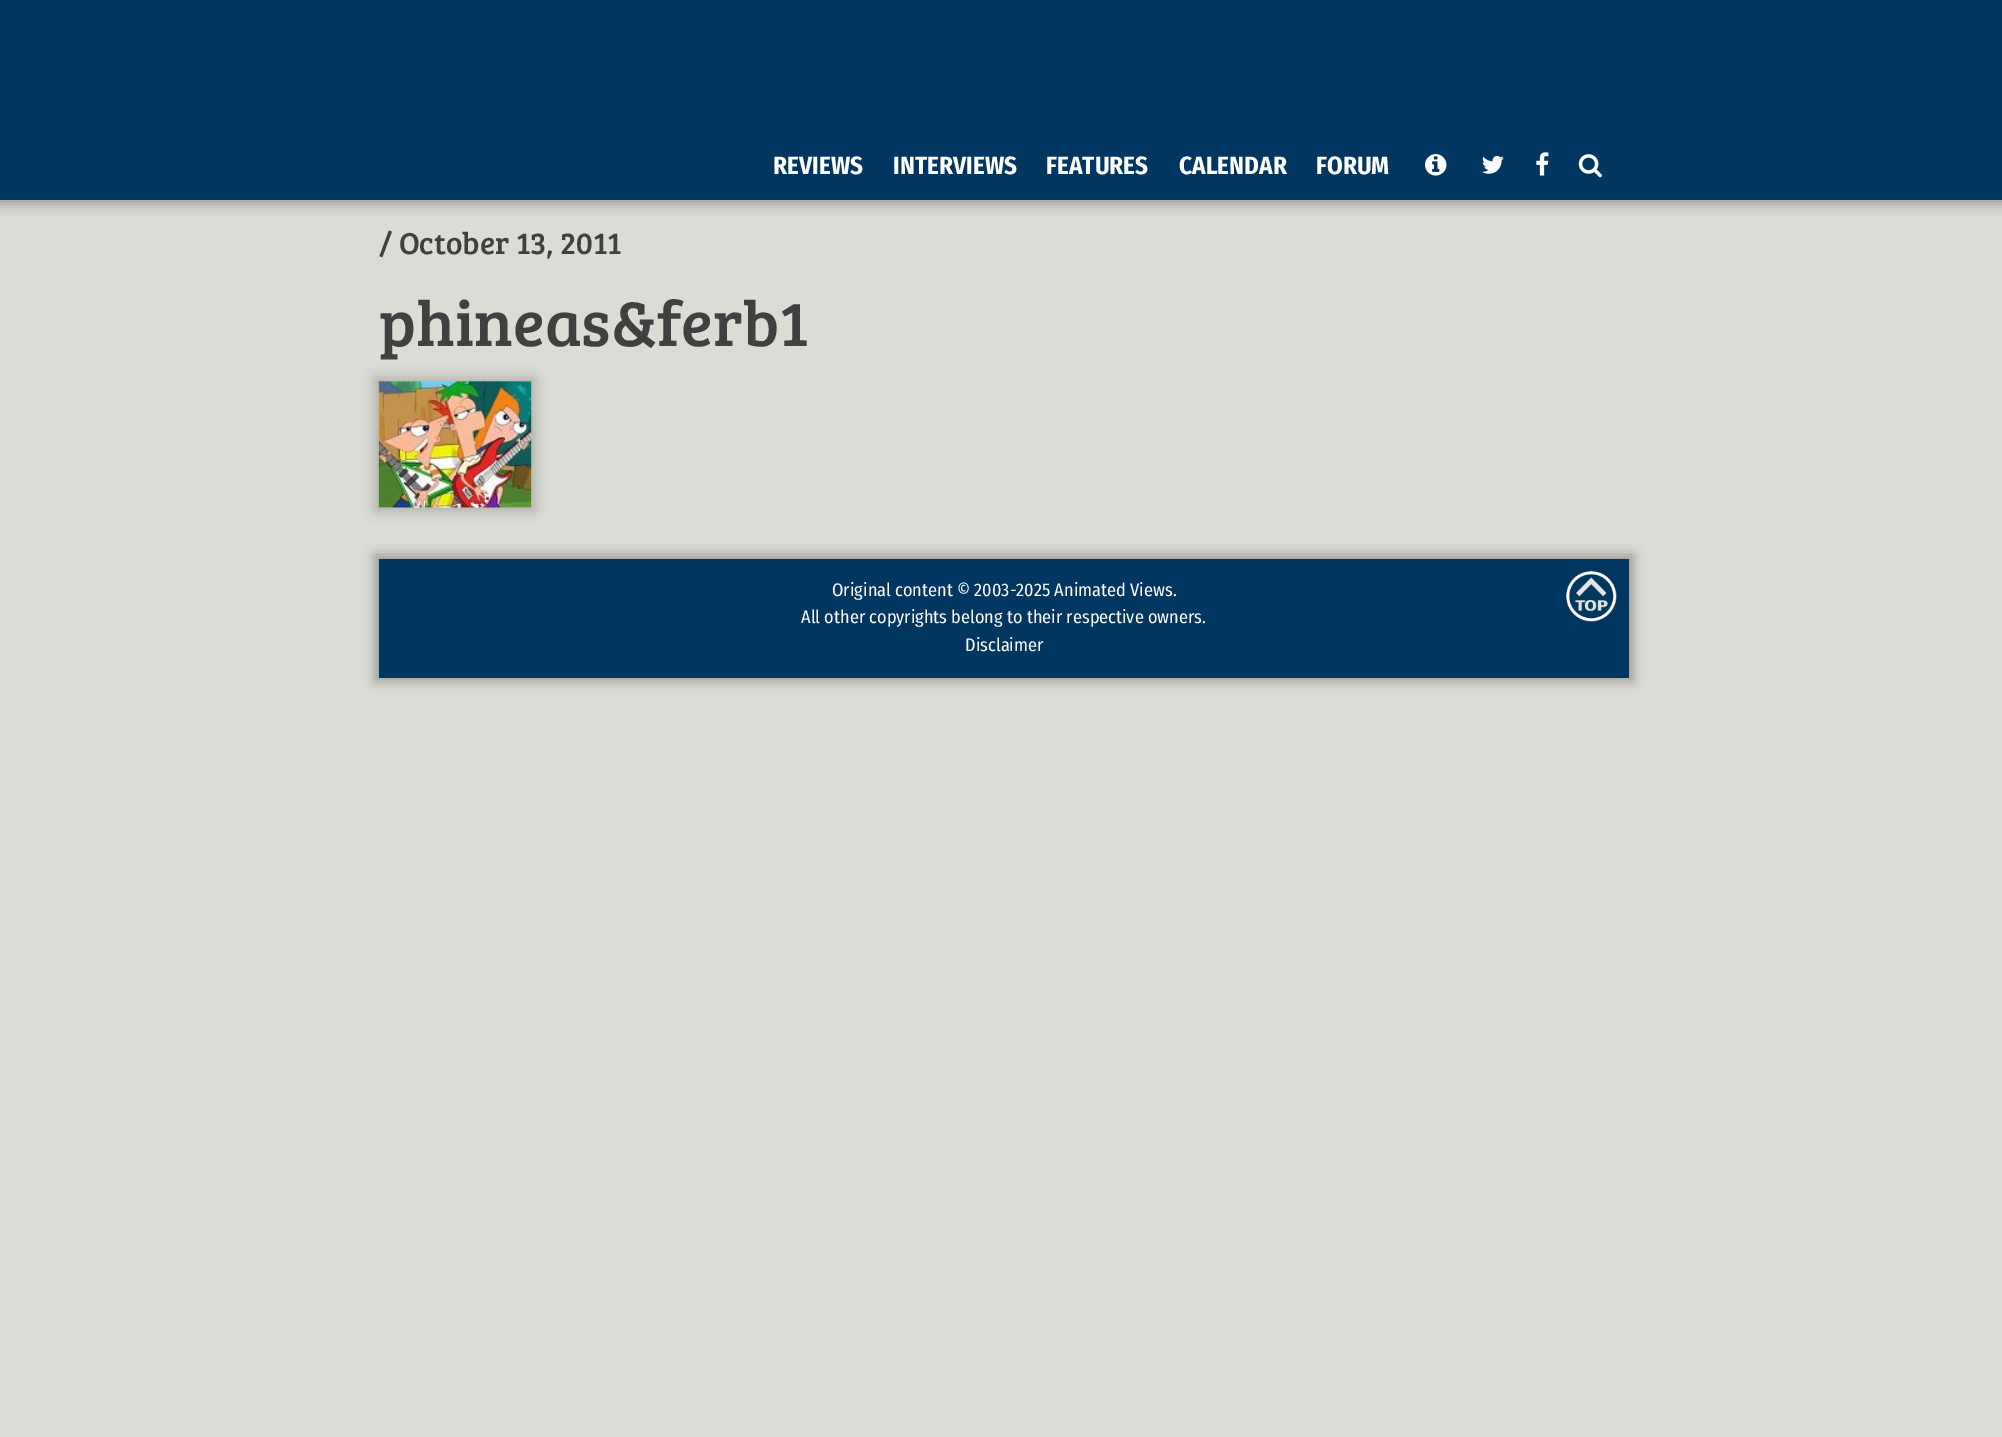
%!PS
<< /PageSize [2002 1437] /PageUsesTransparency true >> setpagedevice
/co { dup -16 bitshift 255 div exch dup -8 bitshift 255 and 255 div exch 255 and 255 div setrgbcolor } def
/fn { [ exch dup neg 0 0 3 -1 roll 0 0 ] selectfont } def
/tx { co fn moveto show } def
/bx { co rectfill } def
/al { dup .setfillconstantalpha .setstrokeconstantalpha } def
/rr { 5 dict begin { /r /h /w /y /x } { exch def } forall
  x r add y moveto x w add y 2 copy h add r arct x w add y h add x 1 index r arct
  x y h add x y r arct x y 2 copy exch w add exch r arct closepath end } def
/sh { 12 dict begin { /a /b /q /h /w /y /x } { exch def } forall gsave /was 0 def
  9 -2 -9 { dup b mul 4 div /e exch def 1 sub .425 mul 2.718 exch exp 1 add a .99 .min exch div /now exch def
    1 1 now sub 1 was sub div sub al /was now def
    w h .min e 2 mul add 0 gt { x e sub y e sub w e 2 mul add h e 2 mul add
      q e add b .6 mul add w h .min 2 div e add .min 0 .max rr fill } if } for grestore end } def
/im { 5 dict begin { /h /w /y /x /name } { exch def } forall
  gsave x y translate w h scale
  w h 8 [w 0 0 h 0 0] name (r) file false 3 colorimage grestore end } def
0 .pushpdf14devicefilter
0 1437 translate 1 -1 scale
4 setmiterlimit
0 0 2002 1437 16#DCDCD6 bx
16#000000 co
-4 -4 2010 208 0 6 .3 sh
0 0 2002 200 16#00365F bx
(media/1.raw) 1425 154 22 22 im
(media/2.raw) 1482 155 22 19 im
(media/3.raw) 1536 152 13 24 im
(media/4.raw) 1578 154 24 24 im
16#000000 co
375 378 160 133 0 6 .2 sh
(media/5.raw) 378 381 154 127 im
375 555 1258 126 0 6 .3 sh
379 559 1250 119 16#00365F bx
(media/6.raw) 1566 571 51 51 im
(REVIEWS) 773 174 /FiraSansCondensed-Bold 25 16#FFFFFF tx
(INTERVIEWS) 893 174 /FiraSansCondensed-Bold 25 16#FFFFFF tx
(FEATURES) 1046 174 /FiraSansCondensed-Bold 25 16#FFFFFF tx
(CALENDAR) 1179 174 /FiraSansCondensed-Bold 25 16#FFFFFF tx
(FORUM) 1316 174 /FiraSansCondensed-Bold 25 16#FFFFFF tx
(/ October 13, 2011) 379 254 /BreeSerif-Regular 31.25 16#404040 tx
(phineas&ferb1) 379 346 /BreeSerif-Regular 65 16#404040 tx
(Original content © 2003-2025 Animated Views.) 832 596 /FiraSansCondensed-Regular 18.2 16#FFFFFF tx
(All other copyrights belong to their respective owners.) 801 623 /FiraSansCondensed-Regular 18.2 16#FFFFFF tx
(Disclaimer) 965 651 /FiraSansCondensed-Regular 18.2 16#FFFFFF tx
.poppdf14devicefilter showpage
